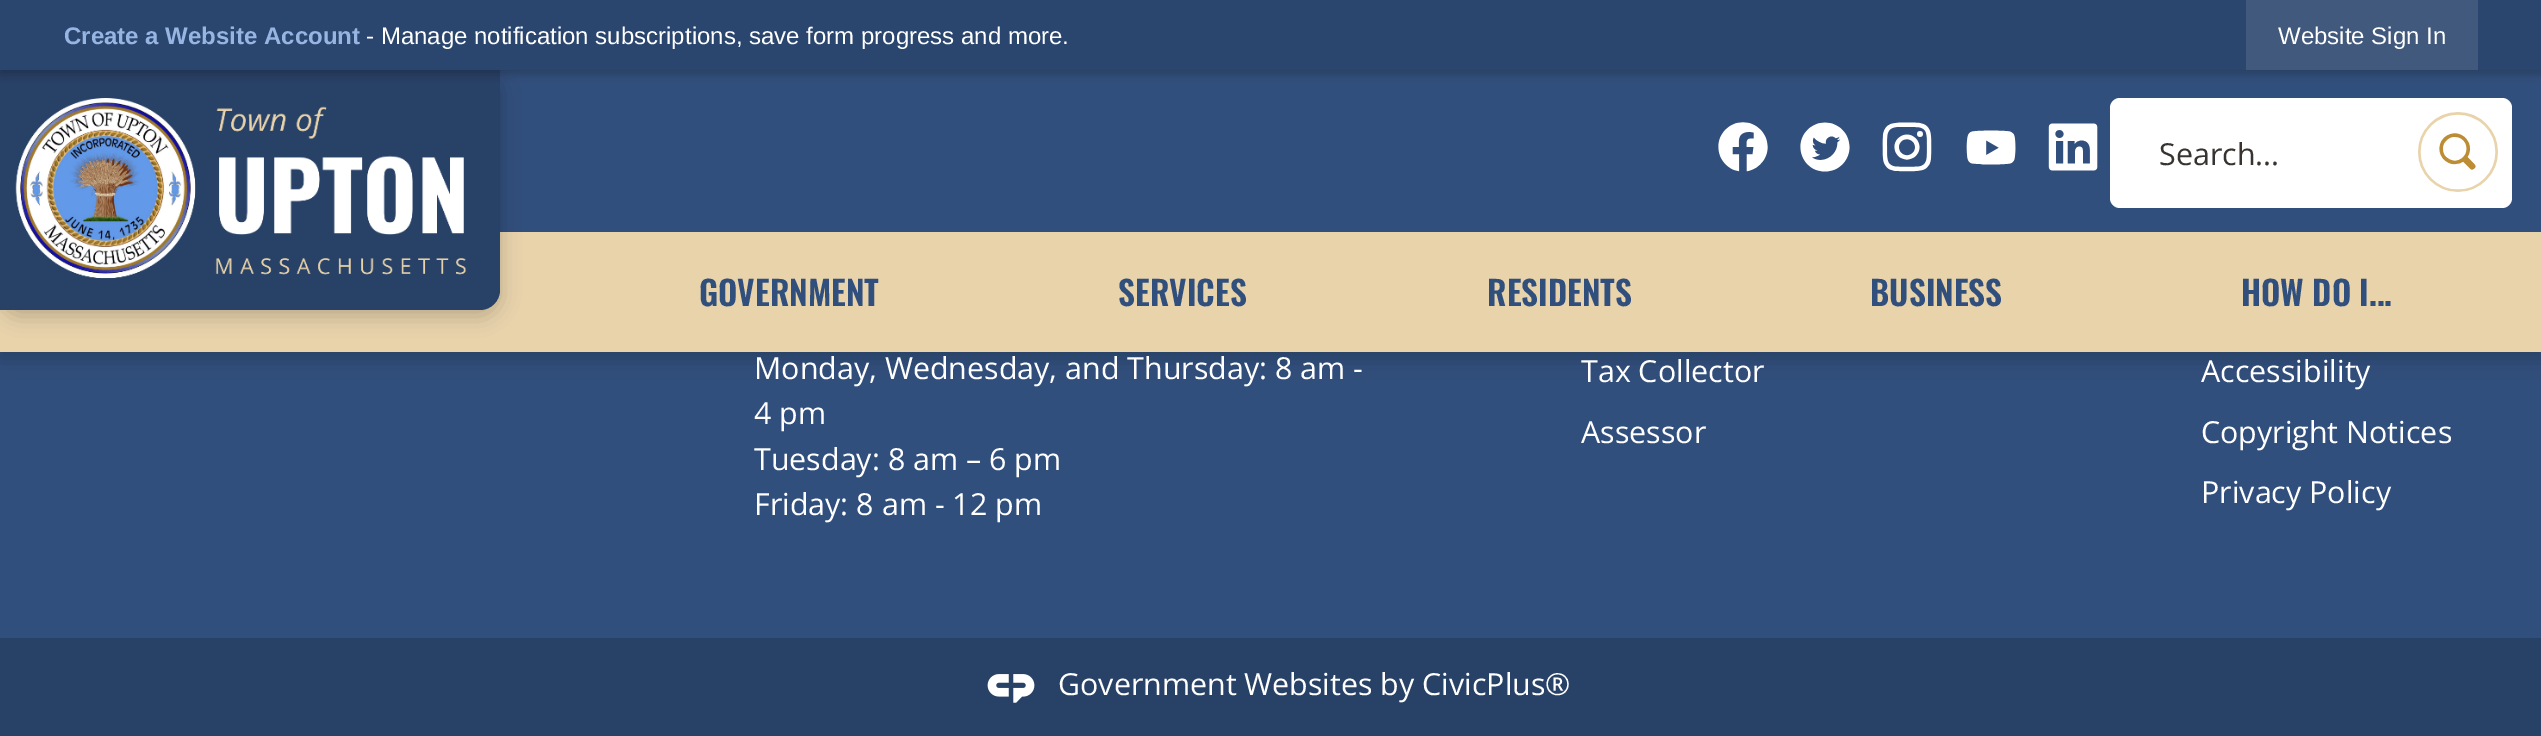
%!PS
<< /PageSize [2541 736] /PageUsesTransparency true >> setpagedevice
/mt/moveto load def
/li/lineto load def
/ct/curveto load def
/cp/closepath load def
/fl/fill load def
/co { dup -16 bitshift 255 div exch dup -8 bitshift 255 and 255 div exch 255 and 255 div setrgbcolor } def
/fn { [ exch dup neg 0 0 3 -1 roll 0 0 ] selectfont } def
/tx { co fn moveto show } def
/bx { co rectfill } def
/al { dup .setfillconstantalpha .setstrokeconstantalpha } def
/rr { 5 dict begin { /r /h /w /y /x } { exch def } forall
  x r add y moveto x w add y 2 copy h add r arct x w add y h add x 1 index r arct
  x y h add x y r arct x y 2 copy exch w add exch r arct closepath end } def
/sh { 12 dict begin { /a /b /q /h /w /y /x } { exch def } forall gsave /was 0 def
  9 -2 -9 { dup b mul 4 div /e exch def 1 sub .425 mul 2.718 exch exp 1 add a .99 .min exch div /now exch def
    1 1 now sub 1 was sub div sub al /was now def
    w h .min e 2 mul add 0 gt { x e sub y e sub w e 2 mul add h e 2 mul add
      q e add b .6 mul add w h .min 2 div e add .min 0 .max rr fill } if } for grestore end } def
/im { 5 dict begin { /h /w /y /x /name } { exch def } forall
  gsave x y translate w h scale
  w h 8 [w 0 0 h 0 0] name (r) file false 3 colorimage grestore end } def
0 .pushpdf14devicefilter
0 736 translate 1 -1 scale
4 setmiterlimit
0 0 2541 736 16#314F7C bx
16#000000 co
0 74 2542 284 0 10 .2 sh
500 70 2041 162 16#314F7C bx
0 232 2541 120 16#E8D3AB bx
16#000000 co
0 74 500 242 20 10 .2 sh
16#284166 co
0 68 mt 500 68 li 500 290 li 500 301 491 310 480 310 ct 0 310 li cp fl
16#000000 co
0 4 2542 70 0 4 .2 sh
0 0 2541 70 16#2B466E bx
2246 0 232 70 16#40597D bx
(media/1.raw) 15 98 452 181 im
(media/2.raw) 1718 122 50 50 im
(media/3.raw) 1800 122 50 50 im
(media/4.raw) 1882 122 50 50 im
(media/5.raw) 1966 130 50 35 im
(media/6.raw) 2048 123 50 48 im
16#FFFFFF co
2110 98 402 110 10 rr fl
(media/7.raw) 2418 112 80 80 im
0 638 2541 98 16#284166 bx
(media/8.raw) 987 674 48 29 im
(Create a Website Account) 64 44 /LiberationSans-Bold 24 16#96B5E3 tx
(- Manage notification subscriptions, save form progress and more.) 366 44 /LiberationSans-Regular 24 16#FFFFFF tx
(Website Sign In) 2278 44 /LiberationSans-Regular 24 16#FFFFFF tx
(Search...) 2159 165 /OpenSans-Regular 30.4 16#373330 tx
(GOVERNMENT) 699 306 /Oswald-SemiBold 33.5 16#314F7C tx
(SERVICES) 1118 306 /Oswald-SemiBold 33.5 16#314F7C tx
(RESIDENTS) 1487 306 /Oswald-SemiBold 33.5 16#314F7C tx
(BUSINESS) 1870 306 /Oswald-SemiBold 33.5 16#314F7C tx
(HOW DO I...) 2241 306 /Oswald-SemiBold 33.5 16#314F7C tx
(Monday, Wednesday, and Thursday: 8 am -) 754 379 /OpenSans-Regular 30.4 16#FFFFFF tx
(4 pm) 754 424 /OpenSans-Regular 30.4 16#FFFFFF tx
(Tuesday: 8 am – 6 pm) 754 470 /OpenSans-Regular 30.4 16#FFFFFF tx
(Friday: 8 am - 12 pm) 754 515 /OpenSans-Regular 30.4 16#FFFFFF tx
(Tax Collector) 1581 382 /OpenSans-Regular 30.4 16#FFFFFF tx
(Assessor) 1581 443 /OpenSans-Regular 30.4 16#FFFFFF tx
(Accessibility) 2201 382 /OpenSans-Regular 30.4 16#FFFFFF tx
(Copyright Notices) 2201 443 /OpenSans-Regular 30.4 16#FFFFFF tx
(Privacy Policy) 2201 503 /OpenSans-Regular 30.4 16#FFFFFF tx
(Government Websites by CivicPlus®) 1058 695 /OpenSans-Regular 30.4 16#FFFFFF tx
.poppdf14devicefilter showpage
